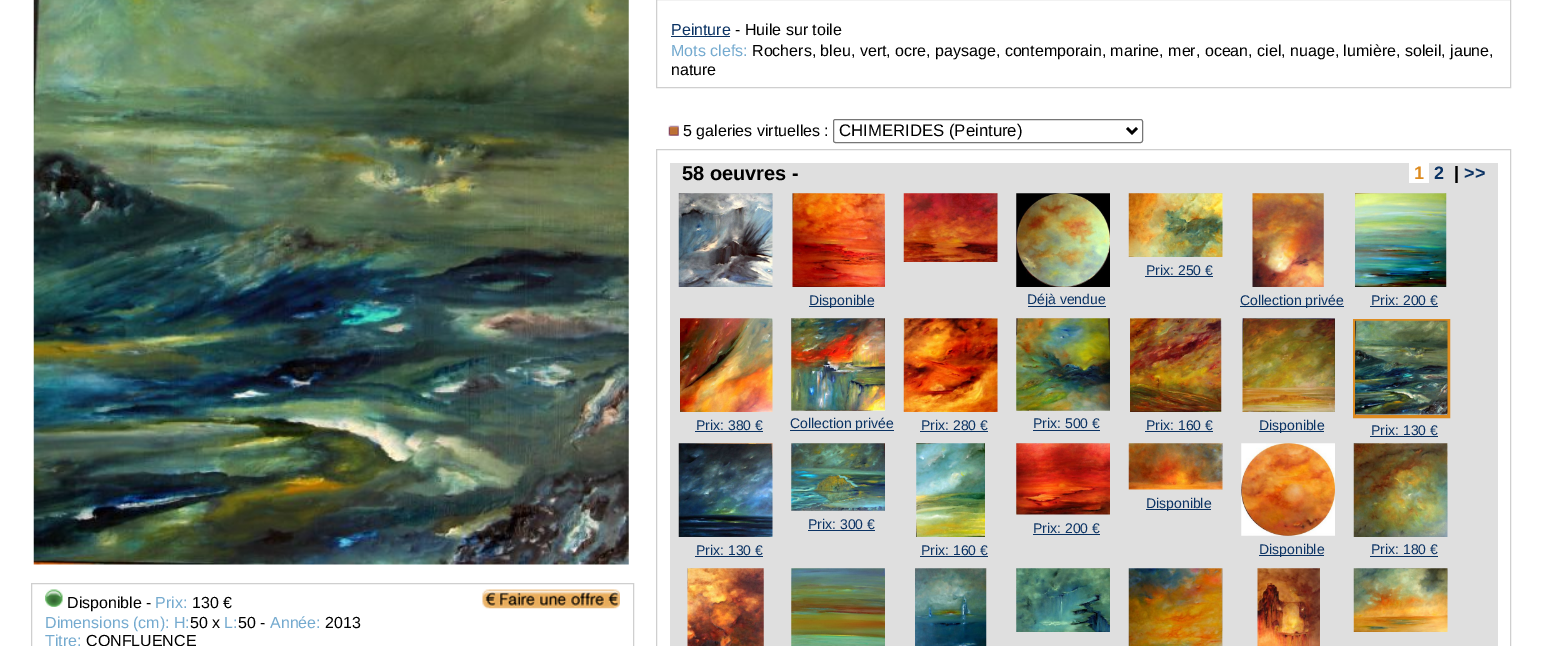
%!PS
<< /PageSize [1542 646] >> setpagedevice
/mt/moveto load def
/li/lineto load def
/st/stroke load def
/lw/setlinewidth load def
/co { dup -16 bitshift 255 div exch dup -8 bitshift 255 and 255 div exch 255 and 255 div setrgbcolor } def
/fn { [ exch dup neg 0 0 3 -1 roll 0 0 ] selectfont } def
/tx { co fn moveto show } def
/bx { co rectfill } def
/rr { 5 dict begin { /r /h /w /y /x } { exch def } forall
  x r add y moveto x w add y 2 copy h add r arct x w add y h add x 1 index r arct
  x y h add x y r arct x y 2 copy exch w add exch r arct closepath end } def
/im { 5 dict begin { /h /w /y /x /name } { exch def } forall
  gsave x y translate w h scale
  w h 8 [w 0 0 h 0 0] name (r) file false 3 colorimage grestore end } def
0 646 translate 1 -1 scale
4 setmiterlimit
0 0 1542 646 16#FFFFFF bx
16#CFCFCF co
656.5 -.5 854 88 rectstroke
671 36 59 1 16#0A3263 bx
(media/1.raw) 668 125 11 11 im
16#767676 co
833.5 119.5 309 23 2 rr st
16#000000 co
2.5 lw
1127 128 mt 1132 133 li 1137 128 li st
16#CFCFCF co
1 lw
656.5 149.5 854 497 rectstroke
670 163 828 483 16#DFDFDF bx
1409 163 20 20 16#FFFFFF bx
(media/2.raw) 678 193 95 94 im
(media/3.raw) 903 193 95 69 im
(media/4.raw) 1128 193 95 64 im
1145 276 68 1 16#0A3263 bx
(media/5.raw) 792 193 93 94 im
809 306 65 1 16#0A3263 bx
(media/6.raw) 1016 193 94 94 im
1028 306 78 1 16#0A3263 bx
(media/7.raw) 1252 193 72 94 im
1240 306 104 1 16#0A3263 bx
(media/8.raw) 1355 193 92 94 im
1370 306 68 1 16#0A3263 bx
(media/9.raw) 680 318 93 94 im
695 431 68 1 16#0A3263 bx
(media/10.raw) 791 318 94 93 im
790 430 104 1 16#0A3263 bx
(media/11.raw) 903 318 95 94 im
920 431 68 1 16#0A3263 bx
(media/12.raw) 1016 318 94 93 im
1033 430 67 1 16#0A3263 bx
(media/13.raw) 1130 318 92 94 im
1145 431 68 1 16#0A3263 bx
(media/14.raw) 1242 318 93 94 im
1259 431 65 1 16#0A3263 bx
16#DD8B1F co
3 lw
1354.5 320.5 94 96 rectstroke
(media/15.raw) 1355 320 93 95 im
1370 436 68 1 16#0A3263 bx
(media/16.raw) 1128 443 95 47 im
1146 509 65 1 16#0A3263 bx
(media/17.raw) 791 443 94 68 im
808 530 67 1 16#0A3263 bx
(media/18.raw) 1016 443 94 72 im
1033 534 67 1 16#0A3263 bx
(media/19.raw) 678 443 95 94 im
695 556 68 1 16#0A3263 bx
(media/20.raw) 916 443 69 94 im
920 556 68 1 16#0A3263 bx
(media/21.raw) 1241 443 94 93 im
1259 555 65 1 16#0A3263 bx
(media/22.raw) 1353 443 95 94 im
1370 556 68 1 16#0A3263 bx
(media/23.raw) 687 568 77 78 im
(media/24.raw) 791 568 94 78 im
(media/25.raw) 915 568 72 78 im
(media/26.raw) 1016 568 94 64 im
(media/27.raw) 1128 568 95 78 im
(media/28.raw) 1257 568 63 78 im
(media/29.raw) 1353 568 95 64 im
(media/30.raw) 33 0 596 565 im
16#CFCFCF co
1 lw
31.5 583.5 602 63 rectstroke
(media/31.raw) 45 589 18 18 im
(media/32.raw) 482 589 138 20 im
(Peinture) 671 35 /LiberationSans-Regular 16 16#0A3263 tx
(- Huile sur toile) 735 35 /LiberationSans-Regular 16 16#000000 tx
(Mots clefs:) 671 56 /LiberationSans-Regular 16 16#74AACF tx
(Rochers, bleu, vert, ocre, paysage, contemporain, marine, mer, ocean, ciel, nuage, lumière, soleil, jaune,) 752 56 /LiberationSans-Regular 16 16#000000 tx
(nature) 671 75 /LiberationSans-Regular 16 16#000000 tx
(5 galeries virtuelles :) 683 136 /LiberationSans-Regular 16 16#000000 tx
(CHIMERIDES \(Peinture\)) 839 136 /LiberationSans-Regular 16.75 16#000000 tx
(58 oeuvres -) 682 180 /LiberationSans-Bold 20 16#000000 tx
(1) 1414 179 /LiberationSans-Bold 18 16#DD8B1F tx
(2) 1434 179 /LiberationSans-Bold 18 16#0A3263 tx
(|) 1454 179 /LiberationSans-Bold 18 16#000000 tx
(>>) 1464 179 /LiberationSans-Bold 18 16#0A3263 tx
(Prix: 250 €) 1146 275 /LiberationSans-Regular 14 16#0A3263 tx
(Disponible) 809 305 /LiberationSans-Regular 14 16#0A3263 tx
(Déjà vendue) 1027 304 /LiberationSans-Regular 14 16#0A3263 tx
(Collection privée) 1240 305 /LiberationSans-Regular 14 16#0A3263 tx
(Prix: 200 €) 1371 305 /LiberationSans-Regular 14 16#0A3263 tx
(Prix: 380 €) 696 430 /LiberationSans-Regular 14 16#0A3263 tx
(Collection privée) 790 428 /LiberationSans-Regular 14 16#0A3263 tx
(Prix: 280 €) 921 430 /LiberationSans-Regular 14 16#0A3263 tx
(Prix: 500 €) 1033 428 /LiberationSans-Regular 14 16#0A3263 tx
(Prix: 160 €) 1146 430 /LiberationSans-Regular 14 16#0A3263 tx
(Disponible) 1259 430 /LiberationSans-Regular 14 16#0A3263 tx
(Prix: 130 €) 1371 435 /LiberationSans-Regular 14 16#0A3263 tx
(Disponible) 1146 508 /LiberationSans-Regular 14 16#0A3263 tx
(Prix: 300 €) 808 529 /LiberationSans-Regular 14 16#0A3263 tx
(Prix: 200 €) 1033 533 /LiberationSans-Regular 14 16#0A3263 tx
(Prix: 130 €) 696 555 /LiberationSans-Regular 14 16#0A3263 tx
(Prix: 160 €) 921 555 /LiberationSans-Regular 14 16#0A3263 tx
(Disponible) 1259 554 /LiberationSans-Regular 14 16#0A3263 tx
(Prix: 180 €) 1371 554 /LiberationSans-Regular 14 16#0A3263 tx
(Disponible -) 67 608 /LiberationSans-Regular 16 16#000000 tx
(Prix:) 155 608 /LiberationSans-Regular 16 16#74AACF tx
(130 €) 192 608 /LiberationSans-Regular 16 16#000000 tx
(Dimensions \(cm\): H:) 45 628 /LiberationSans-Regular 16 16#74AACF tx
(50 x) 190 628 /LiberationSans-Regular 16 16#000000 tx
(L:) 224 628 /LiberationSans-Regular 16 16#74AACF tx
(50 -) 238 628 /LiberationSans-Regular 16 16#000000 tx
(Année:) 270 628 /LiberationSans-Regular 16 16#74AACF tx
(2013) 325 628 /LiberationSans-Regular 16 16#000000 tx
(Titre:) 45 646 /LiberationSans-Regular 16 16#74AACF tx
(CONFLUENCE) 86 646 /LiberationSans-Regular 16 16#000000 tx
showpage
